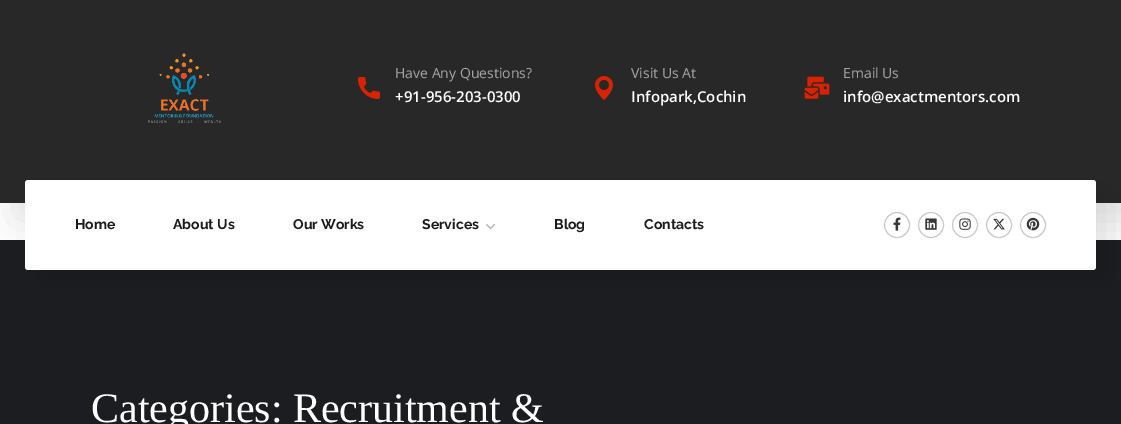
%!PS
<< /PageSize [1121 424] /PageUsesTransparency true >> setpagedevice
/fl/fill load def
/st/stroke load def
/co { dup -16 bitshift 255 div exch dup -8 bitshift 255 and 255 div exch 255 and 255 div setrgbcolor } def
/fn { [ exch dup neg 0 0 3 -1 roll 0 0 ] selectfont } def
/tx { co fn moveto show } def
/bx { co rectfill } def
/al { dup .setfillconstantalpha .setstrokeconstantalpha } def
/ci { newpath 0 360 arc closepath } def
/rr { 5 dict begin { /r /h /w /y /x } { exch def } forall
  x r add y moveto x w add y 2 copy h add r arct x w add y h add x 1 index r arct
  x y h add x y r arct x y 2 copy exch w add exch r arct closepath end } def
/sh { 12 dict begin { /a /b /q /h /w /y /x } { exch def } forall gsave /was 0 def
  9 -2 -9 { dup b mul 4 div /e exch def 1 sub .425 mul 2.718 exch exp 1 add a .99 .min exch div /now exch def
    1 1 now sub 1 was sub div sub al /was now def
    w h .min e 2 mul add 0 gt { x e sub y e sub w e 2 mul add h e 2 mul add
      q e add b .6 mul add w h .min 2 div e add .min 0 .max rr fill } if } for grestore end } def
/im { 5 dict begin { /h /w /y /x /name } { exch def } forall
  gsave x y translate w h scale
  w h 8 [w 0 0 h 0 0] name (r) file false 3 colorimage grestore end } def
0 .pushpdf14devicefilter
0 424 translate 1 -1 scale
4 setmiterlimit
0 0 1121 424 16#FFFFFF bx
0 240 1121 184 16#1B1D21 bx
16#000000 co
15 15 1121 203 0 19 .1 sh
0 0 1121 203 16#282828 bx
(media/1.raw) 148 53 73 70 im
(media/2.raw) 358 77 22 22 im
(media/3.raw) 595 76 18 24 im
(media/4.raw) 804 76 26 23 im
16#000000 co
40 195 1071 90 3 19 .1 sh
16#FFFFFF co
25 180 1071 90 3 rr fl
(media/5.raw) 486 224 9 6 im
16#C9C9C9 co
897 225 12.5 ci st
(media/6.raw) 893 217 8 14 im
931 225 12.5 ci st
(media/7.raw) 925 218 12 12 im
965 225 12.5 ci st
(media/8.raw) 959 218 12 12 im
999 225 12.5 ci st
(media/9.raw) 993 218 12 12 im
1033 225 12.5 ci st
(media/10.raw) 1026 217 14 14 im
(Have Any Questions?) 395 78 /OpenSans-Regular 14 16#A5A5A5 tx
(+91-956-203-0300) 395 102 /OpenSans-SemiBold 15 16#FFFFFF tx
(Visit Us At) 631 78 /OpenSans-Regular 14 16#A5A5A5 tx
(Infopark,Cochin) 631 102 /OpenSans-SemiBold 15 16#FFFFFF tx
(Email Us) 843 78 /OpenSans-Regular 14 16#A5A5A5 tx
(info@exactmentors.com) 843 102 /OpenSans-SemiBold 15 16#FFFFFF tx
(Home) 75 229 /Raleway-Bold 14 16#1A1B1E tx
(About Us) 173 229 /Raleway-Bold 14 16#1A1B1E tx
(Our Works) 293 229 /Raleway-Bold 14 16#1A1B1E tx
(Services) 422 229 /Raleway-Bold 14 16#1A1B1E tx
(Blog) 554 229 /Raleway-Bold 14 16#1A1B1E tx
(Contacts) 644 229 /Raleway-Bold 14 16#1A1B1E tx
(Categories: Recruitment &) 91 422 /LiberationSerif-Regular 42 16#FFFFFF tx
.poppdf14devicefilter showpage
